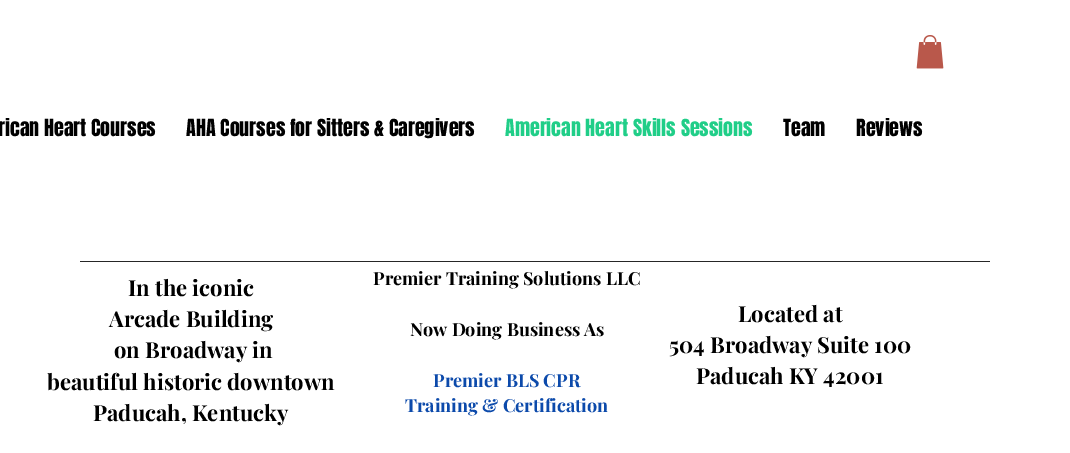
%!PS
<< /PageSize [1070 453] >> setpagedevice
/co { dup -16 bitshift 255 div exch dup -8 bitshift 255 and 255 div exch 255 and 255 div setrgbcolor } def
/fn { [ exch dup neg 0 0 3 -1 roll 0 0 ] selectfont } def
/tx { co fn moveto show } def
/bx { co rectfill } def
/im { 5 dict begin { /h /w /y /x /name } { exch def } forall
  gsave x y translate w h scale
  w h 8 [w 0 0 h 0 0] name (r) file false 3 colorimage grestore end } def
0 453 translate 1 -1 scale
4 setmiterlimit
0 0 1070 453 16#FFFFFF bx
(media/1.raw) 916 35 28 34 im
80 261 910 1 16#262626 bx
(rican Heart Courses) -2 136 /Anton-Regular 20 16#000000 tx
(AHA Courses for Sitters & Caregivers) 186 136 /Anton-Regular 20 16#000000 tx
(American Heart Skills Sessions) 505 136 /Anton-Regular 20 16#20CE88 tx
(Team) 783 136 /Anton-Regular 20 16#000000 tx
(Reviews) 856 136 /Anton-Regular 20 16#000000 tx
(In the iconic) 128 296 /PlayfairDisplay-Bold 22 16#000000 tx
(Arcade Building) 109 327 /PlayfairDisplay-Bold 22 16#000000 tx
(on Broadway in) 114 358 /PlayfairDisplay-Bold 22 16#000000 tx
(beautiful historic downtown) 47 390 /PlayfairDisplay-Bold 22 16#000000 tx
(Paducah, Kentucky) 93 421 /PlayfairDisplay-Bold 22 16#000000 tx
(Premier Training Solutions LLC) 373 285 /PlayfairDisplay-Bold 18 16#000000 tx
(Now Doing Business As) 410 336 /PlayfairDisplay-Bold 18 16#000000 tx
(Premier BLS CPR) 433 387 /PlayfairDisplay-Bold 18 16#0C4AAB tx
(Training & Certification) 405 412 /PlayfairDisplay-Bold 18 16#0C4AAB tx
(Located at) 738 322 /PlayfairDisplay-Bold 22 16#000000 tx
(504 Broadway Suite 100) 669 353 /PlayfairDisplay-Bold 22 16#000000 tx
(Paducah KY 42001) 696 384 /PlayfairDisplay-Bold 22 16#000000 tx
showpage
